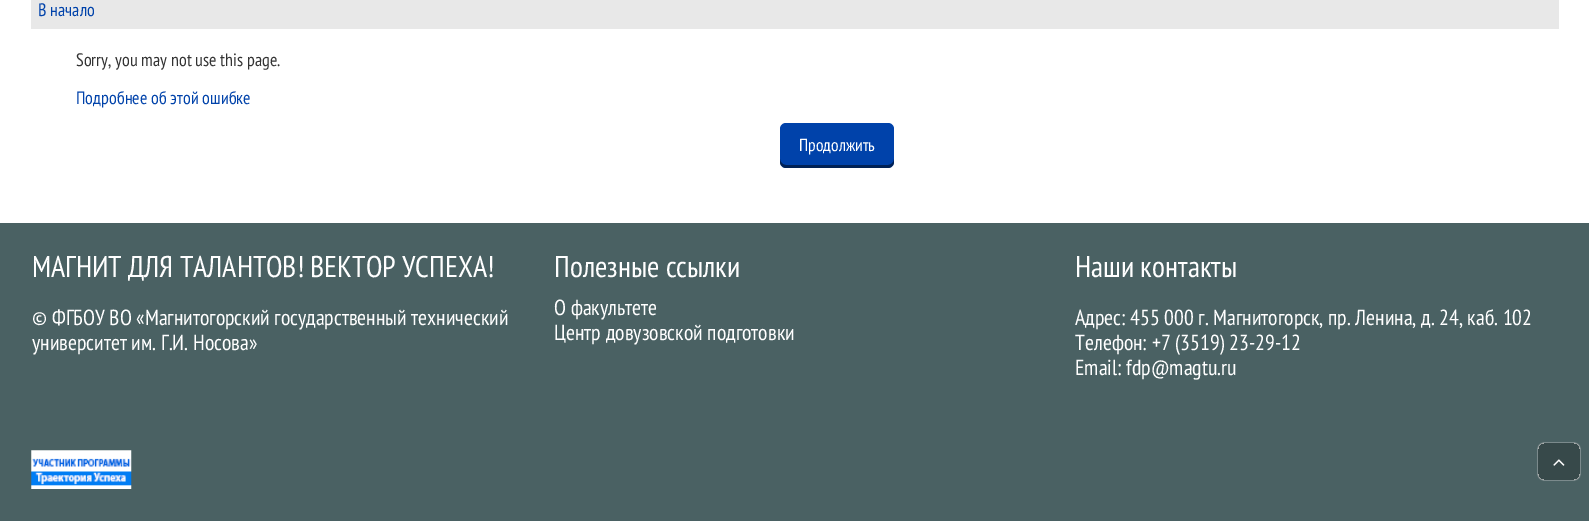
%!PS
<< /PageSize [1589 521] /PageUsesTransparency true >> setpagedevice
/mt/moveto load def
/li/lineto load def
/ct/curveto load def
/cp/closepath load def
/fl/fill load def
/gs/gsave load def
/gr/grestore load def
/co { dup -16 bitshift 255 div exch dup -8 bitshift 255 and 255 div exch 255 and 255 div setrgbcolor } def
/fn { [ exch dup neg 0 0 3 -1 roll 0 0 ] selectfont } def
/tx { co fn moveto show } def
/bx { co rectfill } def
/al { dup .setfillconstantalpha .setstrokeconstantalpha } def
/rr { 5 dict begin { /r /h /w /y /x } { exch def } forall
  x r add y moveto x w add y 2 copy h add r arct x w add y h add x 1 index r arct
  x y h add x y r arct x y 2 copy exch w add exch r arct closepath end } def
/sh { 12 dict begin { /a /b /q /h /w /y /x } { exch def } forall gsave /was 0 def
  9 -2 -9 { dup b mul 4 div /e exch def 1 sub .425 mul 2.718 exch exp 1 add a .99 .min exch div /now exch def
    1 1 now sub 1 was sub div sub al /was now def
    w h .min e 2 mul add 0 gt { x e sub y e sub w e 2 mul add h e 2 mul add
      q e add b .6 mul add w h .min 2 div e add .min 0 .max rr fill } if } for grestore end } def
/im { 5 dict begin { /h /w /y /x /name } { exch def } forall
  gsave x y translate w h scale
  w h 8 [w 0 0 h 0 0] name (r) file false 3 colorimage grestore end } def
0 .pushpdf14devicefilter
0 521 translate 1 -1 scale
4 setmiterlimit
0 0 1589 521 16#FFFFFF bx
31 0 1528 29 16#E8E8E8 bx
16#0042AA co
780 123 114 45 6 rr fl
0.5 al
16#000000 co
780 159 mt 780 162 li 780 165 783 168 786 168 ct 888 168 li 891 168 894 165 894 162 ct 894 159 li 894 162 891 165 888 165 ct 786 165 li 783 165 780 162 780 159 ct cp fl
1 al
0 223 1589 298 16#4A6163 bx
(media/1.raw) 31 450 101 39 im
gs
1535 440 mt 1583 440 li 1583 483 li 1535 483 li cp 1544 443 mt 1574 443 li 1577.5 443 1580 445.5 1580 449 ct 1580 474 li 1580 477.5 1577.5 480 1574 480 ct 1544 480 li 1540.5 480 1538 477.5 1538 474 ct 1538 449 li 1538 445.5 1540.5 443 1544 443 ct cp eoclip newpath
16#FFFFFF co
1538 443 42 37 6 .5 1 sh
gr
0.25 al
16#000000 co
1538 443 42 37 6 rr fl
1 al
(media/2.raw) 1553 459 12 7 im
(В начало) 38 16 /PTSansNarrow-Regular 18 16#0042AA tx
(Sorry, you may not use this page.) 76 66 /PTSansNarrow-Regular 18 16#333333 tx
(Подробнее об этой ошибке) 76 104 /PTSansNarrow-Regular 18 16#0042AA tx
(Продолжить) 799 151 /PTSansNarrow-Regular 17.5 16#FFFFFF tx
(МАГНИТ ДЛЯ ТАЛАНТОВ! ВЕКТОР УСПЕХА!) 32 277 /PTSansNarrow-Regular 30 16#FFFFFF tx
(© ФГБОУ ВО «Магнитогорский государственный технический) 32 325 /PTSansNarrow-Regular 21.8 16#FFFFFF tx
(университет им. Г.И. Носова») 32 350 /PTSansNarrow-Regular 21.8 16#FFFFFF tx
(Полезные ссылки) 554 277 /PTSansNarrow-Regular 30 16#FFFFFF tx
(О факультете) 554 315 /PTSansNarrow-Regular 21.8 16#FFFFFF tx
(Центр довузовской подготовки) 554 340 /PTSansNarrow-Regular 21.8 16#FFFFFF tx
(Наши контакты) 1075 277 /PTSansNarrow-Regular 30 16#FFFFFF tx
(Адрес: 455 000 г. Магнитогорск, пр. Ленина, д. 24, каб. 102) 1075 325 /PTSansNarrow-Regular 21.8 16#FFFFFF tx
(Телефон: +7 \(3519\) 23-29-12) 1075 350 /PTSansNarrow-Regular 21.8 16#FFFFFF tx
(Email: fdp@magtu.ru) 1075 375 /PTSansNarrow-Regular 21.8 16#FFFFFF tx
.poppdf14devicefilter showpage
